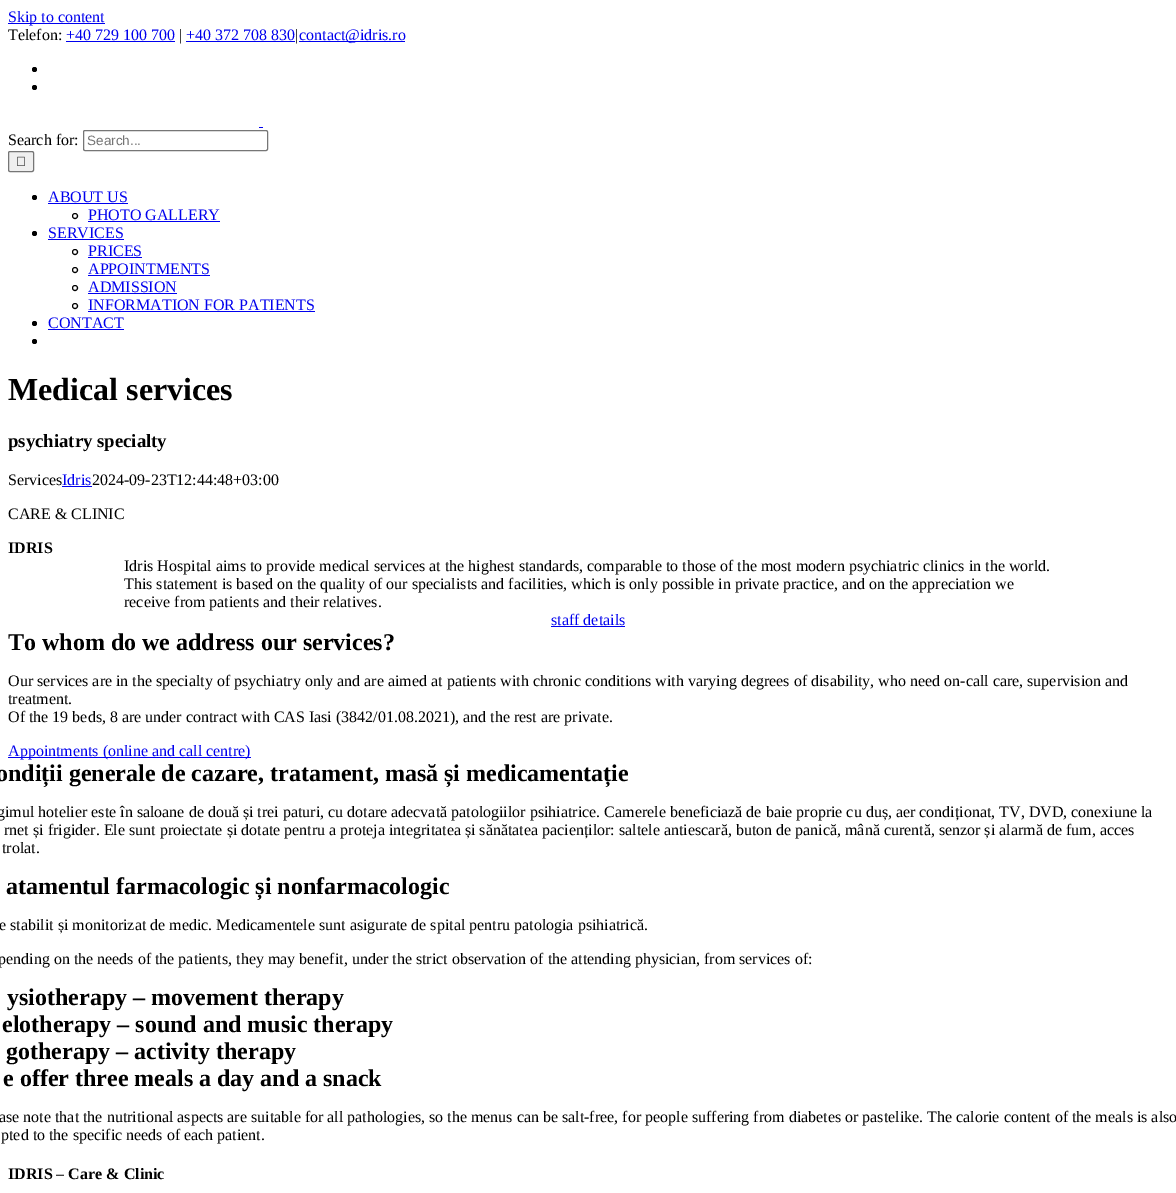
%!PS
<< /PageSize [1176 1193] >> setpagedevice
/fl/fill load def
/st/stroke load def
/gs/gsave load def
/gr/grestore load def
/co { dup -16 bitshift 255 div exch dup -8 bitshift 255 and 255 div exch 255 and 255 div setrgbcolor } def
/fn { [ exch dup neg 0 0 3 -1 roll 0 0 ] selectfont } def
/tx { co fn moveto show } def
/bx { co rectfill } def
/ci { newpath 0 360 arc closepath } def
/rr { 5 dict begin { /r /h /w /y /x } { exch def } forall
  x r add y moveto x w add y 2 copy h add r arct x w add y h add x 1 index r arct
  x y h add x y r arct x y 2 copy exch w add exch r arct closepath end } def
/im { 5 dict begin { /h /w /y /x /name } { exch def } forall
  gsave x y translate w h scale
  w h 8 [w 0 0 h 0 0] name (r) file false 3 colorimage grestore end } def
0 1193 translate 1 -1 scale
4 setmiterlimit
0 0 1176 1193 16#FFFFFF bx
8 23 97 1 16#0000EE bx
66 41 109 1 16#0000EE bx
186 41 109 1 16#0000EE bx
299 41 106 1 16#0000EE bx
16#000000 co
34.5 69.5 2.5 ci fl
34.5 87.5 2.5 ci fl
259 127 4 1 16#0000EE bx
16#767676 co
83.5 130.5 184 20 1.5 rr st
16#EFEFEF co
8.5 151.5 25 20 1.5 rr gs fl gr
16#767676 co
st
(media/1.raw) 17 156 8 10 im
16#000000 co
34.5 197.5 2.5 ci fl
48 203 80 1 16#0000EE bx
16#000000 co
75 216 2.5 ci st
88 221 132 1 16#0000EE bx
16#000000 co
34.5 233.5 2.5 ci fl
48 239 76 1 16#0000EE bx
16#000000 co
75 252 2.5 ci st
88 257 54 1 16#0000EE bx
16#000000 co
75 270 2.5 ci st
88 275 122 1 16#0000EE bx
16#000000 co
75 288 2.5 ci st
88 293 89 1 16#0000EE bx
16#000000 co
75 306 2.5 ci st
88 311 227 1 16#0000EE bx
16#000000 co
34.5 323.5 2.5 ci fl
48 329 76 1 16#0000EE bx
16#000000 co
34.5 341.5 2.5 ci fl
62 486 30 1 16#0000EE bx
551 626 74 1 16#0000EE bx
8 757 243 1 16#0000EE bx
(Skip to content) 8 22 /LiberationSerif-Regular 16 16#0000EE tx
(Telefon:) 8 40 /LiberationSerif-Regular 16 16#000000 tx
(+40 729 100 700) 66 40 /LiberationSerif-Regular 16 16#0000EE tx
(|) 179 40 /LiberationSerif-Regular 16 16#000000 tx
(+40 372 708 830) 186 40 /LiberationSerif-Regular 16 16#0000EE tx
(|) 295 40 /LiberationSerif-Regular 16 16#000000 tx
(contact@idris.ro) 299 40 /LiberationSerif-Regular 16 16#0000EE tx
(Search for:) 8 145 /LiberationSerif-Regular 16 16#000000 tx
(Search...) 87 145 /LiberationSans-Regular 13.5 16#757575 tx
(ABOUT US) 48 202 /LiberationSerif-Regular 16 16#0000EE tx
(PHOTO GALLERY) 88 220 /LiberationSerif-Regular 16 16#0000EE tx
(SERVICES) 48 238 /LiberationSerif-Regular 16 16#0000EE tx
(PRICES) 88 256 /LiberationSerif-Regular 16 16#0000EE tx
(APPOINTMENTS) 88 274 /LiberationSerif-Regular 16 16#0000EE tx
(ADMISSION) 88 292 /LiberationSerif-Regular 16 16#0000EE tx
(INFORMATION FOR PATIENTS) 88 310 /LiberationSerif-Regular 16 16#0000EE tx
(CONTACT) 48 328 /LiberationSerif-Regular 16 16#0000EE tx
(Medical services) 8 400 /LiberationSerif-Bold 32 16#000000 tx
(psychiatry specialty) 8 447 /LiberationSerif-Bold 18.75 16#000000 tx
(Services) 8 485 /LiberationSerif-Regular 16 16#000000 tx
(Idris) 62 485 /LiberationSerif-Regular 16 16#0000EE tx
(2024-09-23T12:44:48+03:00) 92 485 /LiberationSerif-Regular 16 16#000000 tx
(CARE & CLINIC) 8 519 /LiberationSerif-Regular 16 16#000000 tx
(IDRIS) 8 553 /LiberationSerif-Bold 16 16#000000 tx
(Idris Hospital aims to provide medical services at the highest standards, comparable to those of the most modern psychiatric clinics in the world.) 124 571 /LiberationSerif-Regular 16 16#000000 tx
(This statement is based on the quality of our specialists and facilities, which is only possible in private practice, and on the appreciation we) 124 589 /LiberationSerif-Regular 16 16#000000 tx
(receive from patients and their relatives.) 124 607 /LiberationSerif-Regular 16 16#000000 tx
(staff details) 551 625 /LiberationSerif-Regular 16 16#0000EE tx
(To whom do we address our services?) 8 650 /LiberationSerif-Bold 24 16#000000 tx
(Our services are in the specialty of psychiatry only and are aimed at patients with chronic conditions with varying degrees of disability, who need on-call care, supervision and) 8 686 /LiberationSerif-Regular 16 16#000000 tx
(treatment.) 8 704 /LiberationSerif-Regular 16 16#000000 tx
(Of the 19 beds, 8 are under contract with CAS Iasi \(3842/01.08.2021\), and the rest are private.) 8 722 /LiberationSerif-Regular 16 16#000000 tx
(Appointments \(online and call centre\)) 8 756 /LiberationSerif-Regular 16 16#0000EE tx
(ondiții generale de cazare, tratament, masă și medicamentație) -4 781 /LiberationSerif-Bold 24 16#000000 tx
(gimul hotelier este în saloane de două și trei paturi, cu dotare adecvată patologiilor psihiatrice. Camerele beneficiază de baie proprie cu duș, aer condiționat, TV, DVD, conexiune la) -3 817 /LiberationSerif-Regular 16 16#000000 tx
(rnet și frigider. Ele sunt proiectate și dotate pentru a proteja integritatea și sănătatea pacienților: saltele antiescară, buton de panică, mână curentă, senzor și alarmă de fum, acces) 4 835 /LiberationSerif-Regular 16 16#000000 tx
(trolat.) 2 853 /LiberationSerif-Regular 16 16#000000 tx
(atamentul farmacologic și nonfarmacologic) 6 894 /LiberationSerif-Bold 24 16#000000 tx
(e stabilit și monitorizat de medic. Medicamentele sunt asigurate de spital pentru patologia psihiatrică.) -1 930 /LiberationSerif-Regular 16 16#000000 tx
(pending on the needs of the patients, they may benefit, under the strict observation of the attending physician, from services of:) -2 964 /LiberationSerif-Regular 16 16#000000 tx
(ysiotherapy – movement therapy) 7 1005 /LiberationSerif-Bold 24 16#000000 tx
(elotherapy – sound and music therapy) 2 1032 /LiberationSerif-Bold 24 16#000000 tx
(gotherapy – activity therapy) 6 1059 /LiberationSerif-Bold 24 16#000000 tx
(e offer three meals a day and a snack) 3 1086 /LiberationSerif-Bold 24 16#000000 tx
(ase note that the nutritional aspects are suitable for all pathologies, so the menus can be salt-free, for people suffering from diabetes or pastelike. The calorie content of the meals is also) -1 1122 /LiberationSerif-Regular 16 16#000000 tx
(pted to the specific needs of each patient.) 1 1140 /LiberationSerif-Regular 16 16#000000 tx
(IDRIS – Care & Clinic) 8 1179 /LiberationSerif-Bold 16 16#000000 tx
showpage
